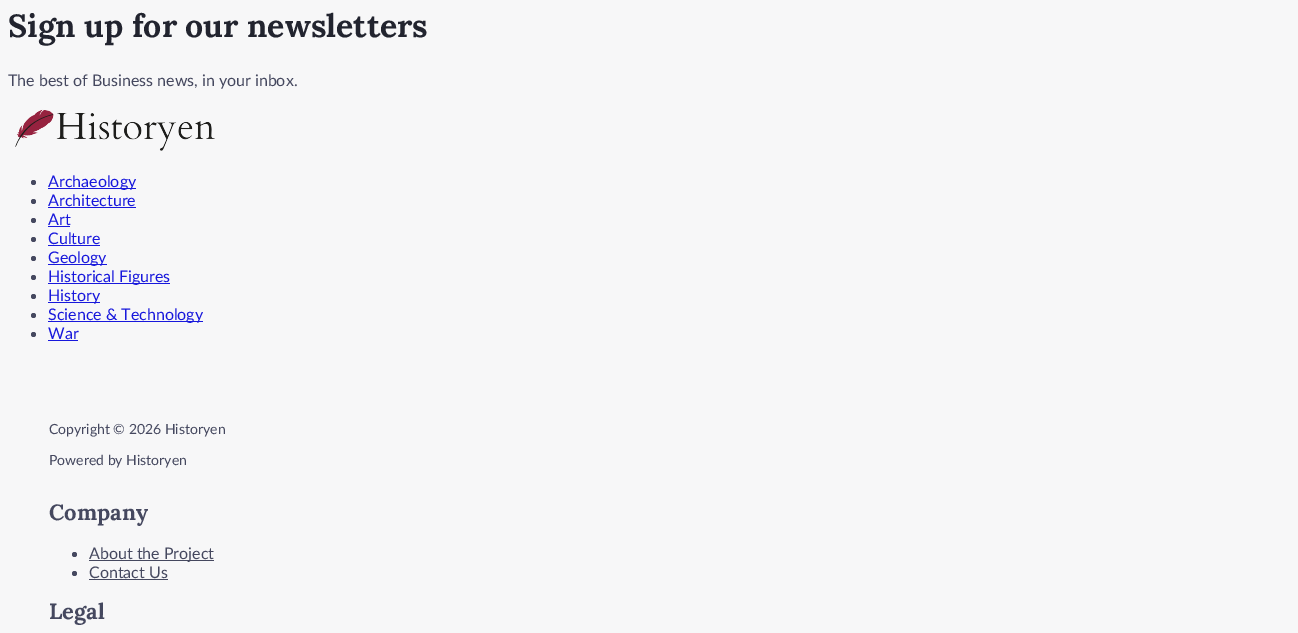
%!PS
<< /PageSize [1298 633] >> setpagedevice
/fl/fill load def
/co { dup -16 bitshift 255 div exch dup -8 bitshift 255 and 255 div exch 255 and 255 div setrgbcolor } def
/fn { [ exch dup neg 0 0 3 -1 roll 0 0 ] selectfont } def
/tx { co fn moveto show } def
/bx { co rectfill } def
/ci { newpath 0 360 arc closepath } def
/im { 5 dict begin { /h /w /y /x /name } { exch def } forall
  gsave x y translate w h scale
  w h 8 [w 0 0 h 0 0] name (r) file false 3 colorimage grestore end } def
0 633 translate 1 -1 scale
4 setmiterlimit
0 0 1298 633 16#F7F7F8 bx
(media/1.raw) 15 109 200 42 im
16#45485F co
33.5 182.5 2.5 ci fl
48 188 88 1 16#1818DC bx
16#45485F co
33.5 201.5 2.5 ci fl
48 207 88 1 16#1818DC bx
16#45485F co
33.5 220.5 2.5 ci fl
48 226 22 1 16#1818DC bx
16#45485F co
33.5 239.5 2.5 ci fl
48 245 52 1 16#1818DC bx
16#45485F co
33.5 258.5 2.5 ci fl
48 264 59 1 16#1818DC bx
16#45485F co
33.5 277.5 2.5 ci fl
48 283 122 1 16#1818DC bx
16#45485F co
33.5 296.5 2.5 ci fl
48 302 52 1 16#1818DC bx
16#45485F co
33.5 315.5 2.5 ci fl
48 321 155 1 16#1818DC bx
16#45485F co
33.5 334.5 2.5 ci fl
48 340 30 1 16#1818DC bx
16#45485F co
74.5 554.5 2.5 ci fl
89 560 125 1 16#45485F bx
74.5 573.5 2.5 ci fl
89 579 79 1 16#45485F bx
(Sign up for our newsletters) 8 37 /Lora-Bold 32 16#22242F tx
(The best of Business news, in your inbox.) 8 86 /Lato-Regular 16 16#45485F tx
(Archaeology) 48 187 /Lato-Regular 16 16#1818DC tx
(Architecture) 48 206 /Lato-Regular 16 16#1818DC tx
(Art) 48 225 /Lato-Regular 16 16#1818DC tx
(Culture) 48 244 /Lato-Regular 16 16#1818DC tx
(Geology) 48 263 /Lato-Regular 16 16#1818DC tx
(Historical Figures) 48 282 /Lato-Regular 16 16#1818DC tx
(History) 48 301 /Lato-Regular 16 16#1818DC tx
(Science & Technology) 48 320 /Lato-Regular 16 16#1818DC tx
(War) 48 339 /Lato-Regular 16 16#1818DC tx
(Copyright © 2026 Historyen) 49 434 /Lato-Regular 14 16#45485F tx
(Powered by Historyen) 49 465 /Lato-Regular 14 16#45485F tx
(Company) 49 520 /Lora-Bold 22 16#45485F tx
(About the Project) 89 559 /Lato-Regular 16 16#45485F tx
(Contact Us) 89 578 /Lato-Regular 16 16#45485F tx
(Legal) 49 619 /Lora-Bold 22 16#45485F tx
showpage
